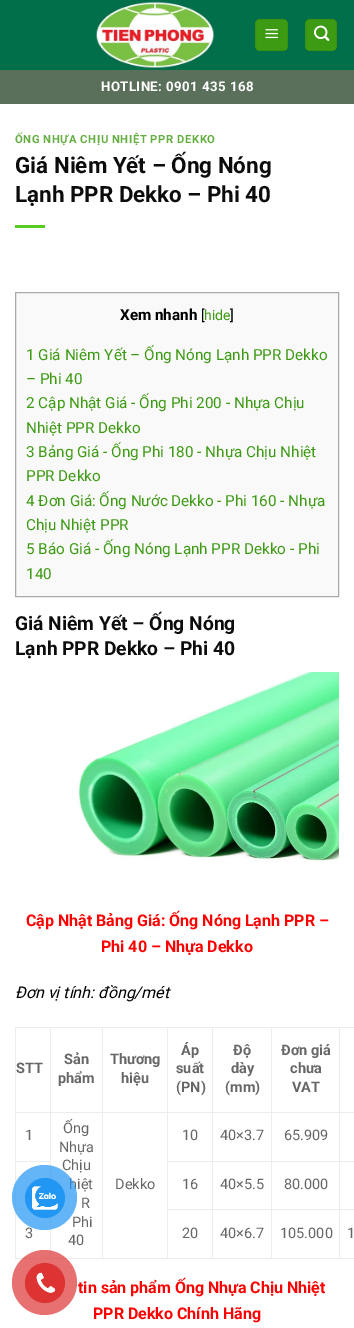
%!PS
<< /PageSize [354 1328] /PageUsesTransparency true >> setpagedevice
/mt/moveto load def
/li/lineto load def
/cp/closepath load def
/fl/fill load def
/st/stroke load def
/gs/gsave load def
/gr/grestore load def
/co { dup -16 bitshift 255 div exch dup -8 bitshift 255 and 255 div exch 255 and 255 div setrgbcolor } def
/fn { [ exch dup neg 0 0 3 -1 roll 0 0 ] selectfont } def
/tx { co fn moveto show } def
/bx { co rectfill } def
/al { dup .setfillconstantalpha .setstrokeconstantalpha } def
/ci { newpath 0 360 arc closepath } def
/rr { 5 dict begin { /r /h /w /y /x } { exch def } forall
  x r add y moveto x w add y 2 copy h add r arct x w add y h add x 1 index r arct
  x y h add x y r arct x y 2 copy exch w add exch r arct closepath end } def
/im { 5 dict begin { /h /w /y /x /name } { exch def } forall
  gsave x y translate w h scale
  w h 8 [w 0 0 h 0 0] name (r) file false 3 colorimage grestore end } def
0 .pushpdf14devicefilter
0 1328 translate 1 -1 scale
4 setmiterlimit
0 0 354 1328 16#FFFFFF bx
0 0 354 70 16#016F4A bx
(media/1.raw) 96 1 119 69 im
16#3D9A13 co
255 19 33 32 5 rr fl
0.05 al
16#000000 co
255.5 19.5 32 31 rectstroke
1 al
(media/2.raw) 265 29 13 10 im
16#3D9A13 co
305 19 32 32 5 rr fl
0.05 al
16#000000 co
305.5 19.5 31 31 rectstroke
1 al
(media/3.raw) 314 25 16 16 im
0 70 354 34 16#5A705A bx
15 225 30 3 16#56CC20 bx
16#F9F9F9 co
15.5 292.5 mt 338.5 292.5 li 338.5 596.5 li 15.5 596.5 li cp gs fl gr
16#AAAAAA co
st
(media/4.raw) 76 672 263 190 im
15 1027 339 1 16#ECECEC bx
15 1258 339 1 16#ECECEC bx
15 1027 1 232 16#ECECEC bx
339 1112 15 1 16#ECECEC bx
339 1161 15 1 16#ECECEC bx
339 1209 15 1 16#ECECEC bx
339 1209 1 50 16#ECECEC bx
271 1209 69 1 16#ECECEC bx
339 1161 1 49 16#ECECEC bx
271 1161 69 1 16#ECECEC bx
339 1112 1 50 16#ECECEC bx
271 1112 69 1 16#ECECEC bx
271 1209 1 50 16#ECECEC bx
212 1209 60 1 16#ECECEC bx
271 1161 1 49 16#ECECEC bx
212 1161 60 1 16#ECECEC bx
271 1112 1 50 16#ECECEC bx
212 1112 60 1 16#ECECEC bx
212 1209 1 50 16#ECECEC bx
167 1209 46 1 16#ECECEC bx
212 1161 1 49 16#ECECEC bx
167 1161 46 1 16#ECECEC bx
212 1112 1 50 16#ECECEC bx
167 1112 46 1 16#ECECEC bx
167 1209 1 50 16#ECECEC bx
167 1161 1 49 16#ECECEC bx
167 1112 1 50 16#ECECEC bx
102 1112 66 1 16#ECECEC bx
102 1112 1 147 16#ECECEC bx
50 1112 53 1 16#ECECEC bx
15 1161 36 1 16#ECECEC bx
50 1112 1 147 16#ECECEC bx
15 1112 36 1 16#ECECEC bx
50 1027 1 86 16#ECECEC bx
102 1027 1 86 16#ECECEC bx
167 1027 1 86 16#ECECEC bx
212 1027 1 86 16#ECECEC bx
271 1027 1 86 16#ECECEC bx
339 1027 1 86 16#ECECEC bx
15 1209 14 1 16#ECECEC bx
0.7 al
16#DD3333 co
44.5 1282.5 32.5 ci fl
1 al
45 1283 20 ci fl
(media/6.raw) 36 1272 20 21 im
/Roboto-Bold 13.25 fn
16#FFFFFF co
101 91 mt .4 0 (HOTLINE: 0901 435 168) ashow
/Roboto-Bold 11.25 fn
16#64AE42 co
15 143 mt .55 0 (ỐNG NHỰA CHỊU NHIỆT PPR DEKKO) ashow
(Giá Niêm Yết – Ống Nóng) 15 173 /Roboto-Bold 22.4 16#0C0C0C tx
(Lạnh PPR Dekko – Phi 40) 15 202 /Roboto-Bold 22.4 16#0C0C0C tx
(Xem nhanh) 120 320 /Roboto-Bold 15.25 16#000000 tx
([) 201 320 /Roboto-Regular 14 16#000000 tx
(hide) 204 320 /Roboto-Regular 14 16#3D9A13 tx
(]) 230 320 /Roboto-Regular 14 16#000000 tx
(1 Giá Niêm Yết – Ống Nóng Lạnh PPR Dekko) 26 360 /Roboto-Regular 15.25 16#3D9A13 tx
(– Phi 40) 26 384 /Roboto-Regular 15.25 16#3D9A13 tx
(2 Cập Nhật Giá - Ống Phi 200 - Nhựa Chịu) 26 408 /Roboto-Regular 15.25 16#3D9A13 tx
(Nhiệt PPR Dekko) 26 433 /Roboto-Regular 15.25 16#3D9A13 tx
(3 Bảng Giá - Ống Phi 180 - Nhựa Chịu Nhiệt) 26 457 /Roboto-Regular 15.25 16#3D9A13 tx
(PPR Dekko) 26 481 /Roboto-Regular 15.25 16#3D9A13 tx
(4 Đơn Giá: Ống Nước Dekko - Phi 160 - Nhựa) 26 506 /Roboto-Regular 15.25 16#3D9A13 tx
(Chịu Nhiệt PPR) 26 530 /Roboto-Regular 15.25 16#3D9A13 tx
(5 Báo Giá - Ống Nóng Lạnh PPR Dekko - Phi) 26 554 /Roboto-Regular 15.25 16#3D9A13 tx
(140) 26 579 /Roboto-Regular 15.25 16#3D9A13 tx
(Giá Niêm Yết – Ống Nóng) 15 630 /Roboto-Bold 19.25 16#0C0C0C tx
(Lạnh PPR Dekko – Phi 40) 15 655 /Roboto-Bold 19.25 16#0C0C0C tx
(Cập Nhật Bảng Giá: Ống Nóng Lạnh PPR –) 26 926 /Roboto-Bold 16 16#FF0000 tx
(Phi 40 – Nhựa Dekko) 101 952 /Roboto-Bold 16 16#FF0000 tx
(Đơn vị tính: đồng/mét) 15 998 /Roboto-Italic 16 16#000000 tx
(STT) 16 1073 /Roboto-Bold 14.5 16#666666 tx
(Sản) 64 1064 /Roboto-Bold 14.5 16#666666 tx
(phẩm) 58 1083 /Roboto-Bold 14.5 16#666666 tx
(Thương) 110 1064 /Roboto-Bold 14.5 16#666666 tx
(hiệu) 121 1083 /Roboto-Bold 14.5 16#666666 tx
(Áp) 181 1055 /Roboto-Bold 14.5 16#666666 tx
(suất) 176 1073 /Roboto-Bold 14.5 16#666666 tx
(\(PN\)) 176 1092 /Roboto-Bold 14.5 16#666666 tx
(Độ) 233 1055 /Roboto-Bold 14.5 16#666666 tx
(dày) 231 1073 /Roboto-Bold 14.5 16#666666 tx
(\(mm\)) 225 1092 /Roboto-Bold 14.5 16#666666 tx
(Đơn giá) 281 1055 /Roboto-Bold 14.5 16#666666 tx
(chưa) 290 1073 /Roboto-Bold 14.5 16#666666 tx
(VAT) 292 1092 /Roboto-Bold 14.5 16#666666 tx
(1) 25 1140 /Roboto-Regular 14.5 16#666666 tx
(Ống) 63 1133 /Roboto-Regular 14.5 16#666666 tx
(Nhựa) 59 1152 /Roboto-Regular 14.5 16#666666 tx
(Chịu) 62 1170 /Roboto-Regular 14.5 16#666666 tx
(hiệt) 69 1189 /Roboto-Regular 14.5 16#666666 tx
(R) 81 1208 /Roboto-Regular 14.5 16#666666 tx
(Phi) 72 1227 /Roboto-Regular 14.5 16#666666 tx
(40) 68 1245 /Roboto-Regular 14.5 16#666666 tx
(10) 182 1140 /Roboto-Regular 14.5 16#666666 tx
(40×3.7) 220 1140 /Roboto-Regular 14.5 16#666666 tx
(65.909) 284 1140 /Roboto-Regular 14.5 16#666666 tx
(Dekko) 115 1189 /Roboto-Regular 14.5 16#666666 tx
(16) 182 1189 /Roboto-Regular 14.5 16#666666 tx
(40×5.5) 220 1189 /Roboto-Regular 14.5 16#666666 tx
(80.000) 284 1189 /Roboto-Regular 14.5 16#666666 tx
(3) 25 1238 /Roboto-Regular 14.5 16#666666 tx
(20) 182 1238 /Roboto-Regular 14.5 16#666666 tx
(40×6.7) 220 1238 /Roboto-Regular 14.5 16#666666 tx
(105.000) 280 1238 /Roboto-Regular 14.5 16#666666 tx
(1) 347 1238 /Roboto-Regular 14.5 16#666666 tx
(tin sản phẩm Ống Nhựa Chịu Nhiệt) 78 1293 /Roboto-Bold 16 16#FF0000 tx
(PPR Dekko Chính Hãng) 93 1319 /Roboto-Bold 16 16#FF0000 tx
0.7 al
16#2196F3 co
44.5 1197.5 32.5 ci fl
1 al
45 1198 20 ci fl
(media/5.raw) 32 1186 26 24 im
.poppdf14devicefilter showpage
